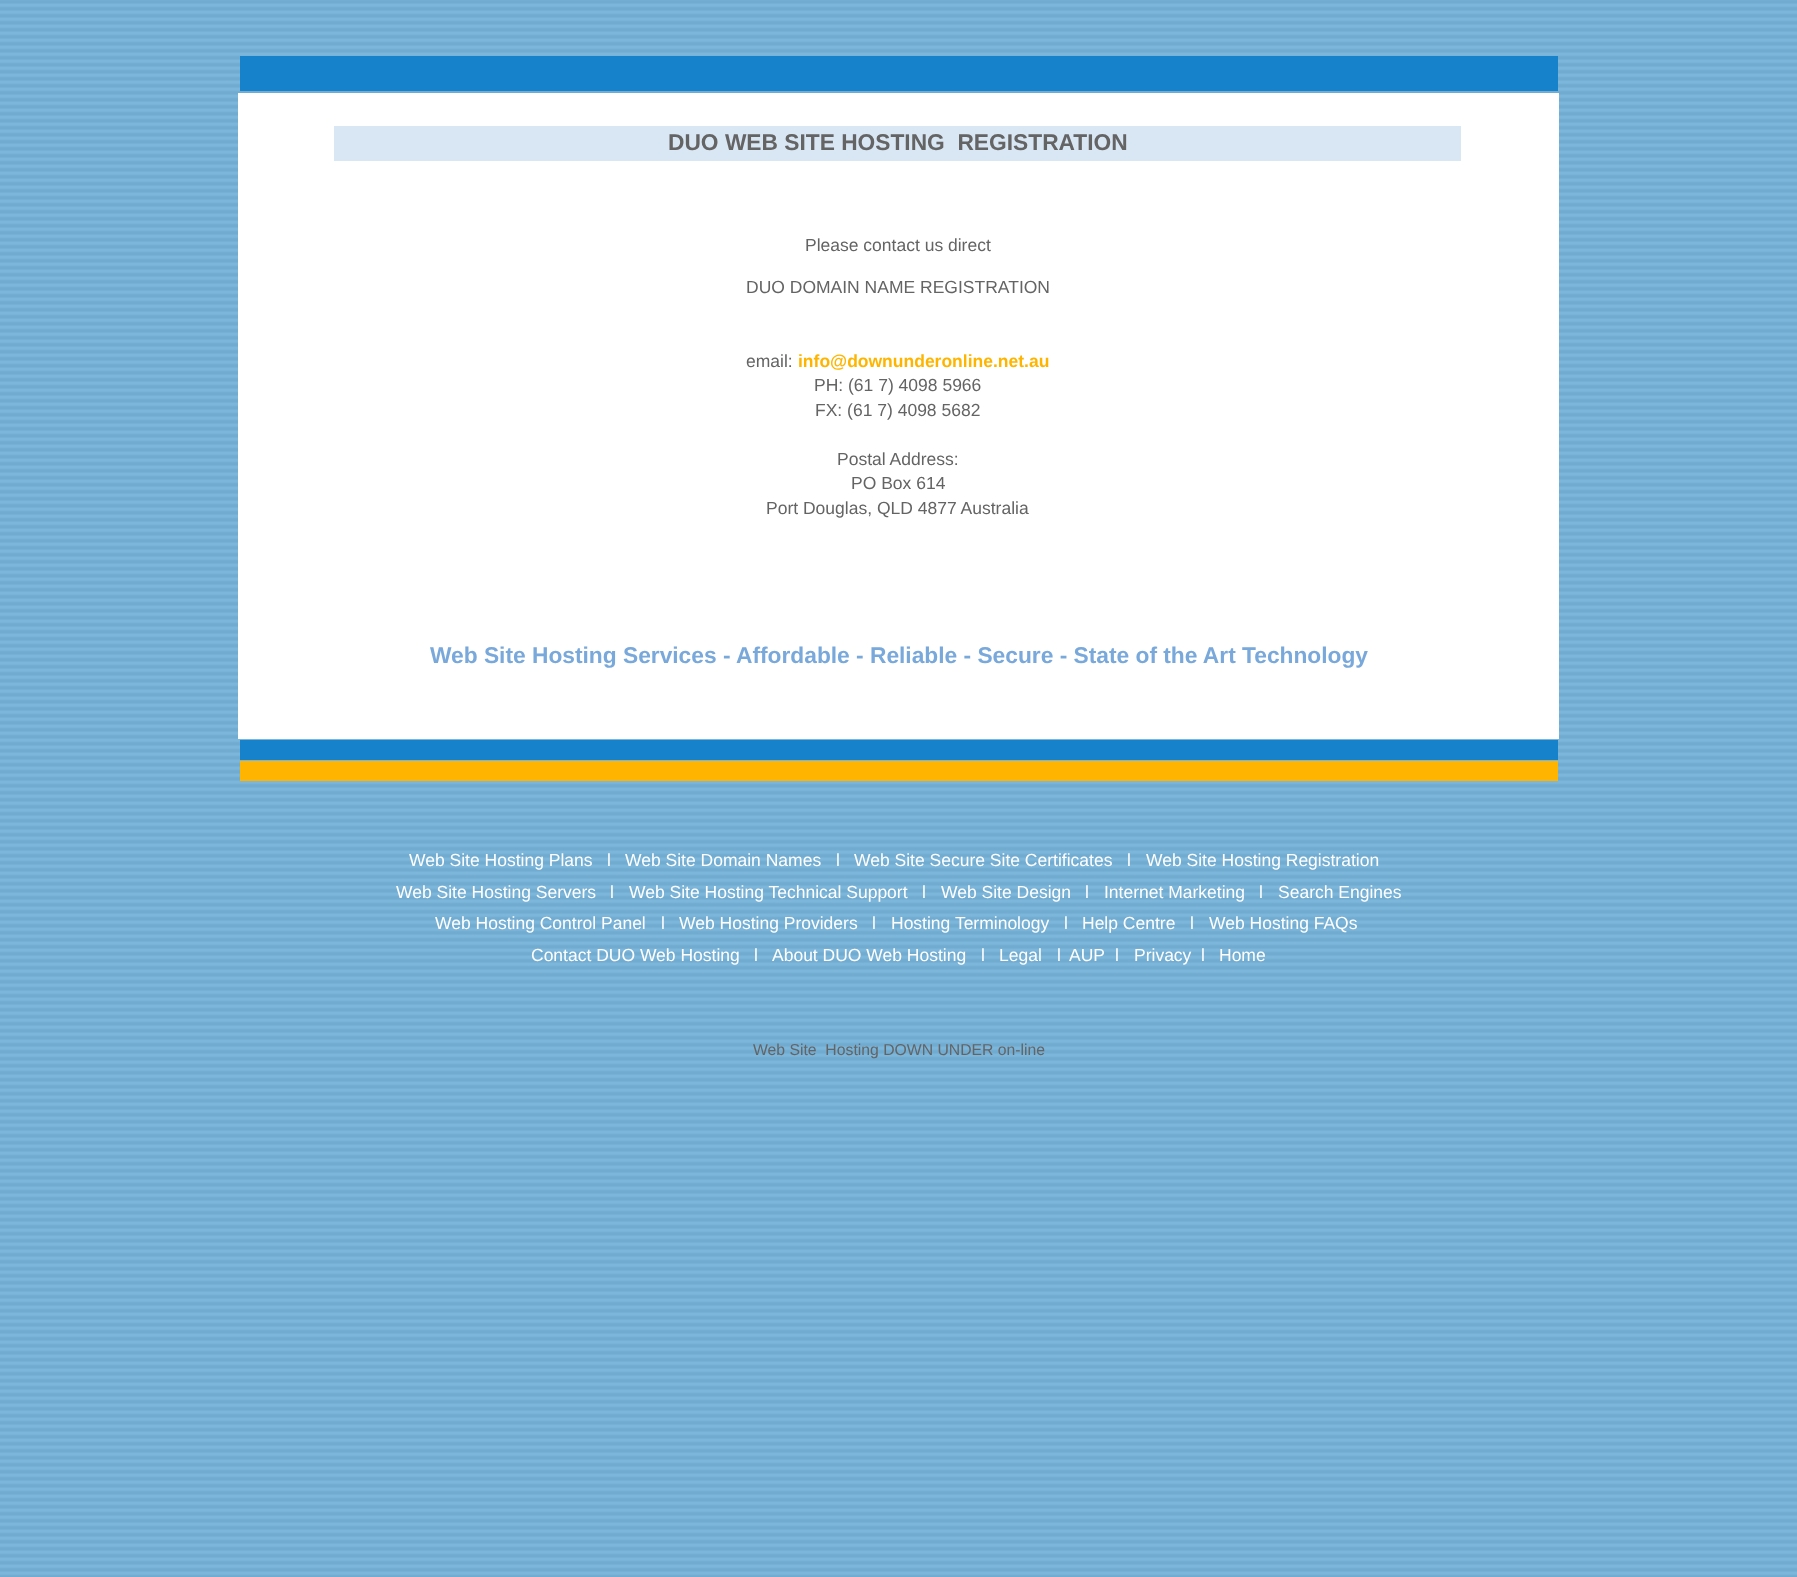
<?xml version="1.0" encoding="UTF-8"?>
<svg xmlns="http://www.w3.org/2000/svg" width="1797" height="1577">
    <rect width="100%" height="100%" fill="#FFFFFF"/>
    <image x="0" y="0" width="1797" height="1577" href="img_01.png"/>
    <rect x="240" y="56" width="1318" height="35" fill="#1682CC"/>
    <rect x="238" y="93" width="1321" height="646" fill="#FFFFFF"/>
    <rect x="334" y="126" width="1127" height="35" fill="#D9E6F4"/>
    <text x="668" y="150" font-family="Liberation Sans" font-size="22.75" font-weight="700" fill="#646464" xml:space="preserve">DUO WEB SITE HOSTING  REGISTRATION</text>
    <text x="805" y="251" font-family="Liberation Sans" font-size="17.5" fill="#646464">Please contact us direct</text>
    <text x="746" y="293" font-family="Liberation Sans" font-size="17.5" fill="#646464">DUO DOMAIN NAME REGISTRATION</text>
    <text x="746" y="367" font-family="Liberation Sans" font-size="17.5" fill="#646464">email:</text>
    <text x="798" y="367" font-family="Liberation Sans" font-size="17.5" font-weight="700" fill="#FFB500">info@downunderonline.net.au</text>
    <text x="814" y="391" font-family="Liberation Sans" font-size="17.5" fill="#646464">PH: (61 7) 4098 5966</text>
    <text x="815" y="416" font-family="Liberation Sans" font-size="17.5" fill="#646464">FX: (61 7) 4098 5682</text>
    <text x="837" y="465" font-family="Liberation Sans" font-size="17.5" fill="#646464">Postal Address:</text>
    <text x="851" y="489" font-family="Liberation Sans" font-size="17.5" fill="#646464">PO Box 614</text>
    <text x="766" y="514" font-family="Liberation Sans" font-size="17.5" fill="#646464">Port Douglas, QLD 4877 Australia</text>
    <text x="430" y="663" font-family="Liberation Sans" font-size="22.75" font-weight="700" fill="#79A8DB">Web Site Hosting Services -</text>
    <text x="736" y="663" font-family="Liberation Sans" font-size="22.75" font-weight="700" fill="#79A8DB">Affordable - Reliable - Secure - State of the Art Technology</text>
    <rect x="240" y="740" width="1318" height="20" fill="#1682CC"/>
    <rect x="240" y="761" width="1318" height="20" fill="#FFB500"/>
    <text x="409" y="866" font-family="Liberation Sans" font-size="17.5" fill="#FFFFFF">Web Site Hosting Plans</text>
    <text x="607" y="866" font-family="Liberation Sans" font-size="17.5" fill="#FFFFFF">l</text>
    <text x="625" y="866" font-family="Liberation Sans" font-size="17.5" fill="#FFFFFF">Web Site Domain Names</text>
    <text x="836" y="866" font-family="Liberation Sans" font-size="17.5" fill="#FFFFFF">l</text>
    <text x="854" y="866" font-family="Liberation Sans" font-size="17.5" fill="#FFFFFF">Web Site Secure Site Certificates</text>
    <text x="1127" y="866" font-family="Liberation Sans" font-size="17.5" fill="#FFFFFF">l</text>
    <text x="1146" y="866" font-family="Liberation Sans" font-size="17.5" fill="#FFFFFF">Web Site Hosting Registration</text>
    <text x="396" y="898" font-family="Liberation Sans" font-size="17.5" fill="#FFFFFF">Web Site Hosting Servers</text>
    <text x="610" y="898" font-family="Liberation Sans" font-size="17.5" fill="#FFFFFF">l</text>
    <text x="629" y="898" font-family="Liberation Sans" font-size="17.5" fill="#FFFFFF">Web Site Hosting Technical Support</text>
    <text x="922" y="898" font-family="Liberation Sans" font-size="17.5" fill="#FFFFFF">l</text>
    <text x="941" y="898" font-family="Liberation Sans" font-size="17.5" fill="#FFFFFF">Web Site Design</text>
    <text x="1085" y="898" font-family="Liberation Sans" font-size="17.5" fill="#FFFFFF">l</text>
    <text x="1104" y="898" font-family="Liberation Sans" font-size="17.5" fill="#FFFFFF">Internet Marketing</text>
    <text x="1259" y="898" font-family="Liberation Sans" font-size="17.5" fill="#FFFFFF">l</text>
    <text x="1278" y="898" font-family="Liberation Sans" font-size="17.5" fill="#FFFFFF">Search Engines</text>
    <text x="435" y="929" font-family="Liberation Sans" font-size="17.5" fill="#FFFFFF">Web Hosting Control Panel</text>
    <text x="661" y="929" font-family="Liberation Sans" font-size="17.5" fill="#FFFFFF">l</text>
    <text x="679" y="929" font-family="Liberation Sans" font-size="17.5" fill="#FFFFFF">Web Hosting Providers</text>
    <text x="872" y="929" font-family="Liberation Sans" font-size="17.5" fill="#FFFFFF">l</text>
    <text x="891" y="929" font-family="Liberation Sans" font-size="17.5" fill="#FFFFFF">Hosting Terminology</text>
    <text x="1064" y="929" font-family="Liberation Sans" font-size="17.5" fill="#FFFFFF">l</text>
    <text x="1082" y="929" font-family="Liberation Sans" font-size="17.5" fill="#FFFFFF">Help Centre</text>
    <text x="1190" y="929" font-family="Liberation Sans" font-size="17.5" fill="#FFFFFF">l</text>
    <text x="1209" y="929" font-family="Liberation Sans" font-size="17.5" fill="#FFFFFF">Web Hosting FAQs</text>
    <text x="531" y="961" font-family="Liberation Sans" font-size="17.5" fill="#FFFFFF">Contact DUO Web Hosting</text>
    <text x="754" y="961" font-family="Liberation Sans" font-size="17.5" fill="#FFFFFF">l</text>
    <text x="772" y="961" font-family="Liberation Sans" font-size="17.5" fill="#FFFFFF">About DUO Web Hosting</text>
    <text x="981" y="961" font-family="Liberation Sans" font-size="17.5" fill="#FFFFFF">l</text>
    <text x="999" y="961" font-family="Liberation Sans" font-size="17.5" fill="#FFFFFF">Legal</text>
    <text x="1057" y="961" font-family="Liberation Sans" font-size="17.5" fill="#FFFFFF">l</text>
    <text x="1069" y="961" font-family="Liberation Sans" font-size="17.5" fill="#FFFFFF">AUP</text>
    <text x="1115" y="961" font-family="Liberation Sans" font-size="17.5" fill="#FFFFFF">l</text>
    <text x="1134" y="961" font-family="Liberation Sans" font-size="17.5" fill="#FFFFFF">Privacy</text>
    <text x="1201" y="961" font-family="Liberation Sans" font-size="17.5" fill="#FFFFFF">l</text>
    <text x="1219" y="961" font-family="Liberation Sans" font-size="17.5" fill="#FFFFFF">Home</text>
    <text x="753" y="1055" font-family="Liberation Sans" font-size="15.75" fill="#646464" xml:space="preserve">Web Site  Hosting DOWN UNDER on-line</text>
</svg>
